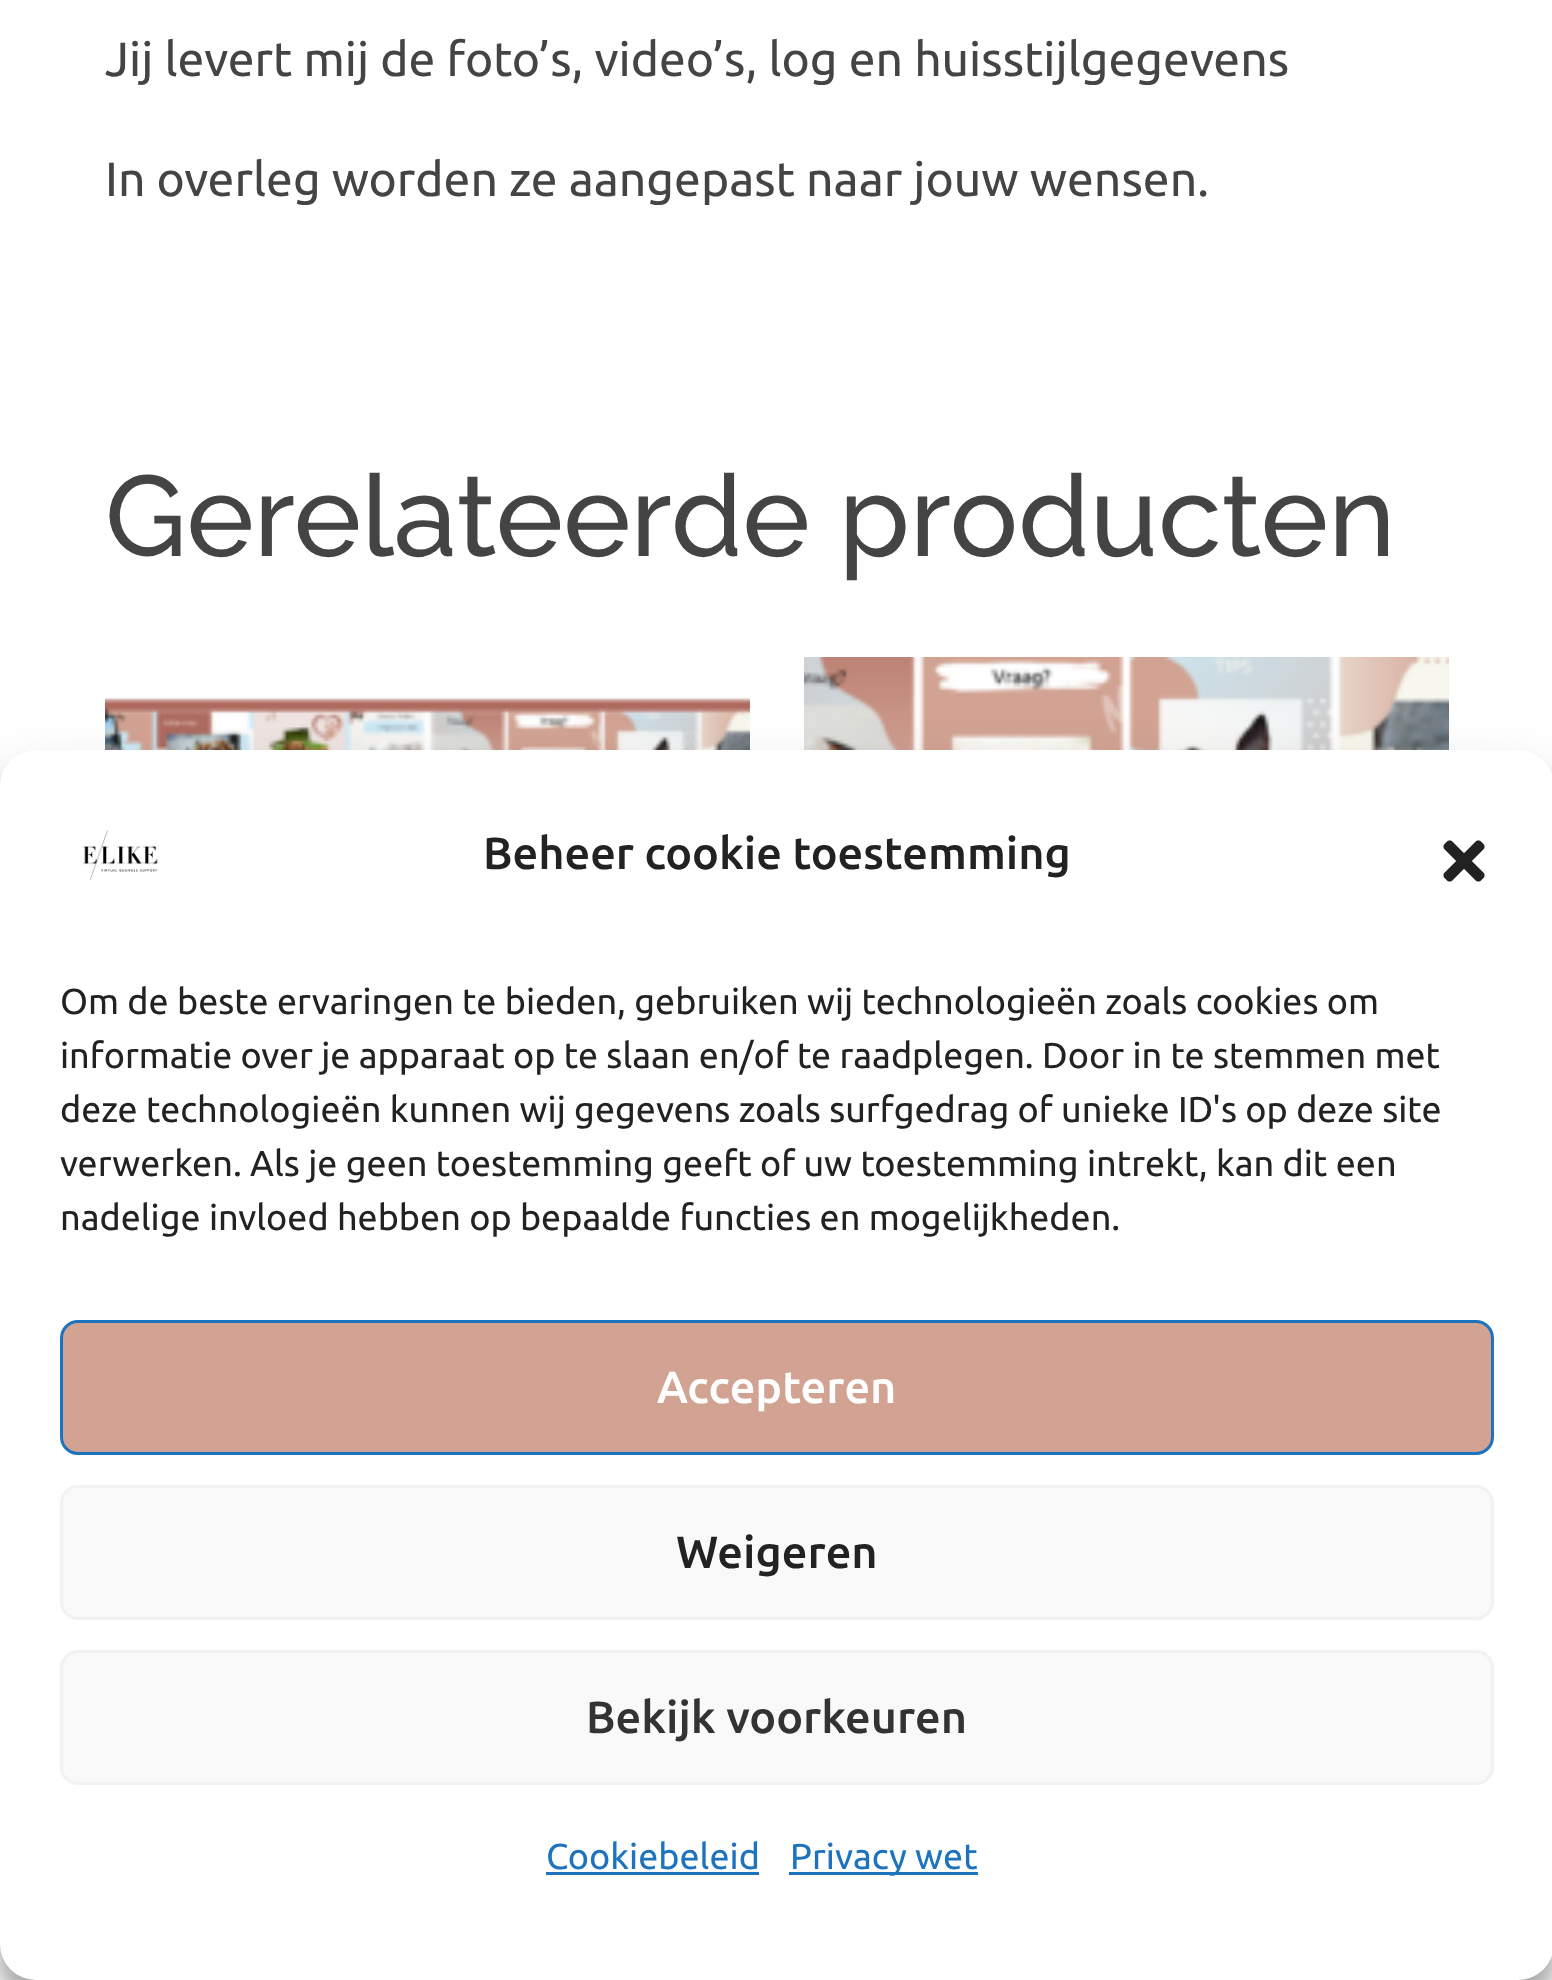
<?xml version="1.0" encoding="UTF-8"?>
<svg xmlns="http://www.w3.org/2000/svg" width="1552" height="1980">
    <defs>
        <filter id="blur1" x="-50%" y="-200%" width="200%" height="500%"><feGaussianBlur stdDeviation="9"/></filter>
        <filter id="blur2" x="-50%" y="-200%" width="200%" height="500%"><feGaussianBlur stdDeviation="30"/></filter>
    </defs>
    <rect width="100%" height="100%" fill="#FFFFFF"/>
    <text x="105" y="76" font-family="Ubuntu" font-size="48" fill="#444444">Jij levert mij de foto’s, video’s, log en huisstijlgegevens</text>
    <text x="105" y="196" font-family="Ubuntu" font-size="48" fill="#444444">In overleg worden ze aangepast naar jouw wensen.</text>
    <text x="105" y="556" font-family="Raleway" font-size="114" font-weight="500" fill="#444444">Gerelateerde producten</text>
    <image x="105" y="698" width="645" height="52" href="img_01.png"/>
    <image x="804" y="657" width="645" height="93" href="img_02.png"/>
    <rect x="0" y="768" width="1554" height="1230" rx="36" fill="#000000" fill-opacity="0.23" filter="url(#blur1)"/>
    <rect x="0" y="780" width="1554" height="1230" rx="36" fill="#000000" fill-opacity="0.19" filter="url(#blur2)"/>
    <rect x="0" y="750" width="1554" height="1230" rx="36" fill="#FFFFFF"/>
    <image x="82" y="830" width="76" height="51" href="img_03.png"/>
    <text x="483" y="869" font-family="Ubuntu" font-size="45" font-weight="500" fill="#222222">Beheer cookie toestemming</text>
    <image x="1443" y="840" width="42" height="42" href="img_04.png"/>
    <text font-family="Ubuntu" font-size="36" fill="#222222">
        <tspan x="60" y="1014">Om de beste ervaringen te bieden, gebruiken wij technologieën zoals cookies om</tspan>
        <tspan x="60" y="1068">informatie over je apparaat op te slaan en/of te raadplegen. Door in te stemmen met</tspan>
        <tspan x="60" y="1122">deze technologieën kunnen wij gegevens zoals surfgedrag of unieke ID's op deze site</tspan>
        <tspan x="60" y="1176">verwerken. Als je geen toestemming geeft of uw toestemming intrekt, kan dit een</tspan>
        <tspan x="60" y="1230">nadelige invloed hebben op bepaalde functies en mogelijkheden.</tspan>
    </text>
    <rect x="61.5" y="1321.5" width="1431" height="132" rx="16.5" fill="#D2A393" stroke="#1E73BE" stroke-width="3"/>
    <text x="657" y="1403" font-family="Ubuntu" font-size="45" font-weight="500" fill="#FFFFFF">Accepteren</text>
    <rect x="61.5" y="1486.5" width="1431" height="132" rx="16.5" fill="#F9F9F9" stroke="#F2F2F2" stroke-width="3"/>
    <text x="676" y="1568" font-family="Ubuntu" font-size="45" font-weight="500" fill="#222222">Weigeren</text>
    <rect x="61.5" y="1651.5" width="1431" height="132" rx="16.5" fill="#F9F9F9" stroke="#F2F2F2" stroke-width="3"/>
    <text x="586" y="1733" font-family="Ubuntu" font-size="45" font-weight="500" fill="#333333">Bekijk voorkeuren</text>
    <text x="546" y="1869" font-family="Ubuntu" font-size="36" fill="#1E73BE">Cookiebeleid</text>
    <rect x="546" y="1872" width="213" height="3" fill="#1E73BE"/>
    <rect x="789" y="1872" width="189" height="3" fill="#1E73BE"/>
    <text x="790" y="1869" font-family="Ubuntu" font-size="36" fill="#1E73BE">Privacy wet</text>
</svg>
